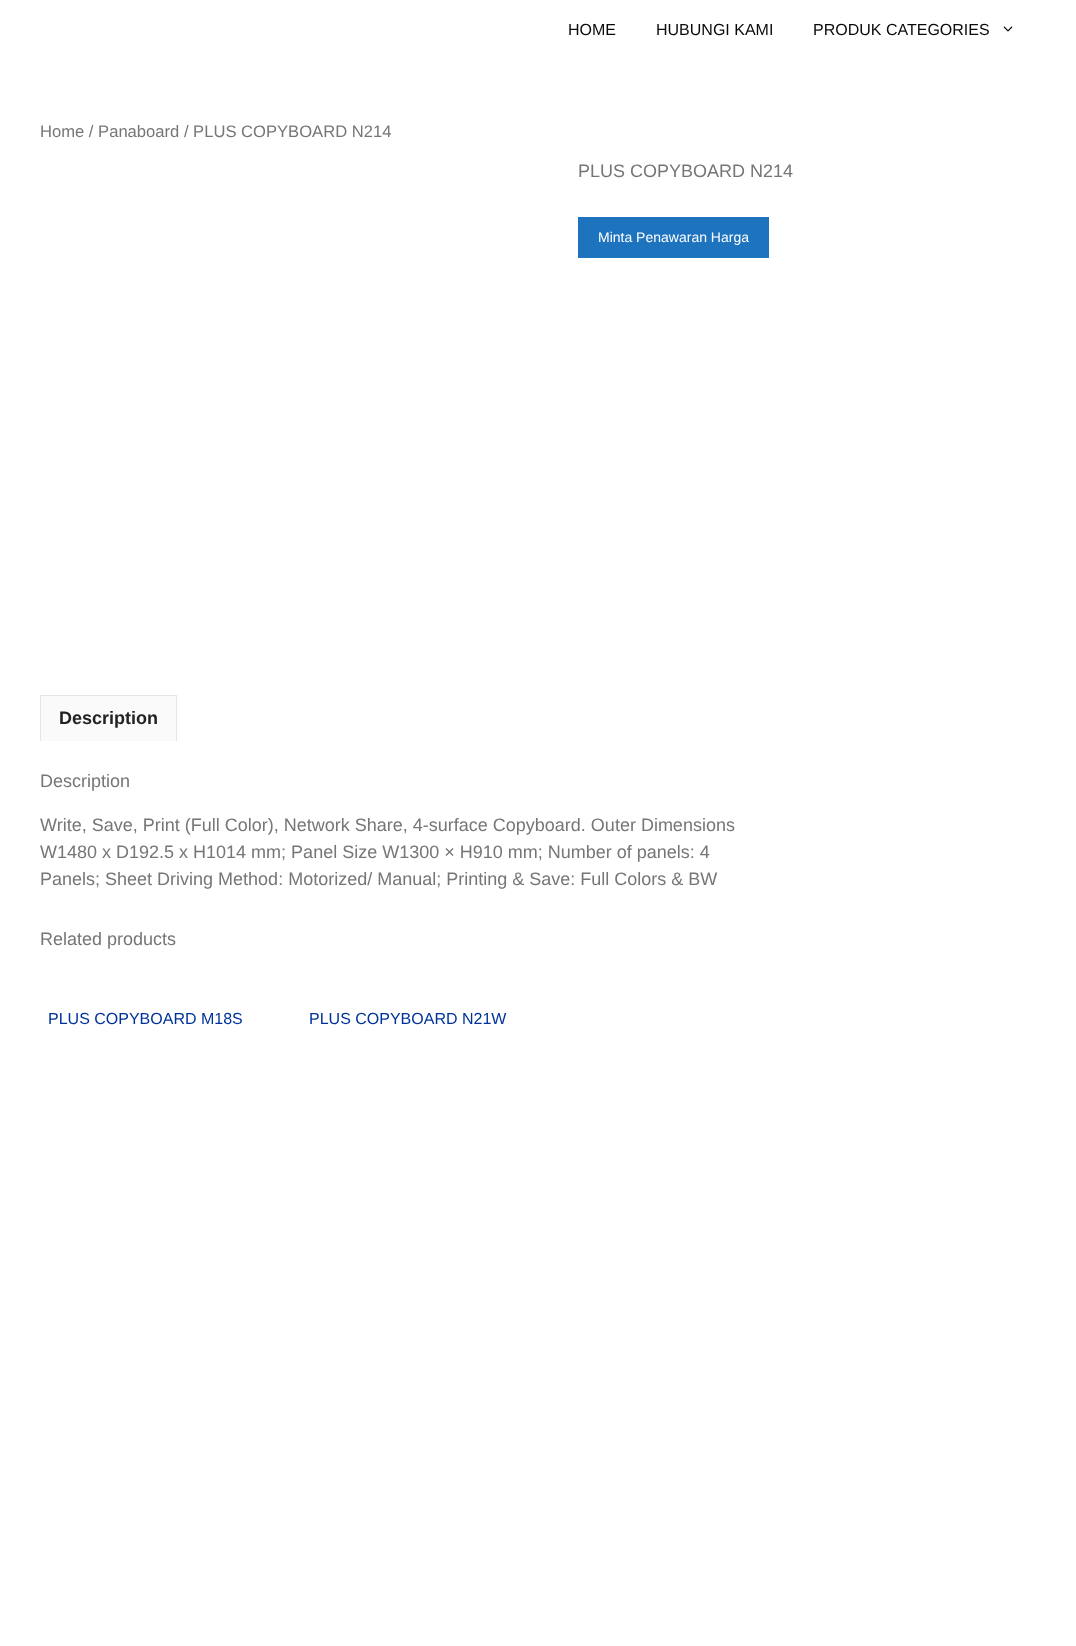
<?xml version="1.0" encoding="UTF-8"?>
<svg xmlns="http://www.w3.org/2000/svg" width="1076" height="1646">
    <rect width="100%" height="100%" fill="#FFFFFF"/>
    <text x="568" y="35" font-family="Liberation Sans" font-size="16" fill="#0A0A0A">HOME</text>
    <text x="656" y="35" font-family="Liberation Sans" font-size="16" fill="#0A0A0A">HUBUNGI KAMI</text>
    <text x="813" y="35" font-family="Liberation Sans" font-size="16" fill="#0A0A0A">PRODUK CATEGORIES</text>
    <image x="1003" y="26" width="10" height="6" href="img_01.png"/>
    <text x="40" y="137" font-family="Liberation Sans" font-size="16.6" fill="#767676">Home / Panaboard / PLUS COPYBOARD N214</text>
    <text x="578" y="177" font-family="Liberation Sans" font-size="18" fill="#767676">PLUS COPYBOARD N214</text>
    <rect x="578" y="217" width="191" height="41" fill="#1E73BE"/>
    <text x="598" y="242" font-family="Liberation Sans" font-size="14" fill="#FFFFFF">Minta Penawaran Harga</text>
    <rect x="40" y="695" width="137" height="46" fill="#FAFAFA"/>
    <path d="M 40 695 H 177 L 176 696 H 41 Z" fill="#E6E6E6"/>
    <path d="M 177 695 V 741 H 176 V 696 Z" fill="#000000" fill-opacity="0.08"/>
    <path d="M 40 741 V 695 L 41 696 V 741 Z" fill="#000000" fill-opacity="0.08"/>
    <text x="59" y="724" font-family="Liberation Sans" font-size="18" font-weight="700" fill="#222222">Description</text>
    <text x="40" y="787" font-family="Liberation Sans" font-size="18" fill="#767676">Description</text>
    <text font-family="Liberation Sans" font-size="18" fill="#767676">
        <tspan x="40" y="831">Write, Save, Print (Full Color), Network Share, 4-surface Copyboard. Outer Dimensions</tspan>
        <tspan x="40" y="858">W1480 x D192.5 x H1014 mm; Panel Size W1300 × H910 mm; Number of panels: 4</tspan>
        <tspan x="40" y="885">Panels; Sheet Driving Method: Motorized/ Manual; Printing &amp; Save: Full Colors &amp; BW</tspan>
    </text>
    <text x="40" y="945" font-family="Liberation Sans" font-size="18" fill="#767676">Related products</text>
    <text x="48" y="1024" font-family="Liberation Sans" font-size="16" fill="#003399">PLUS COPYBOARD M18S</text>
    <text x="309" y="1024" font-family="Liberation Sans" font-size="16" fill="#003399">PLUS COPYBOARD N21W</text>
</svg>
